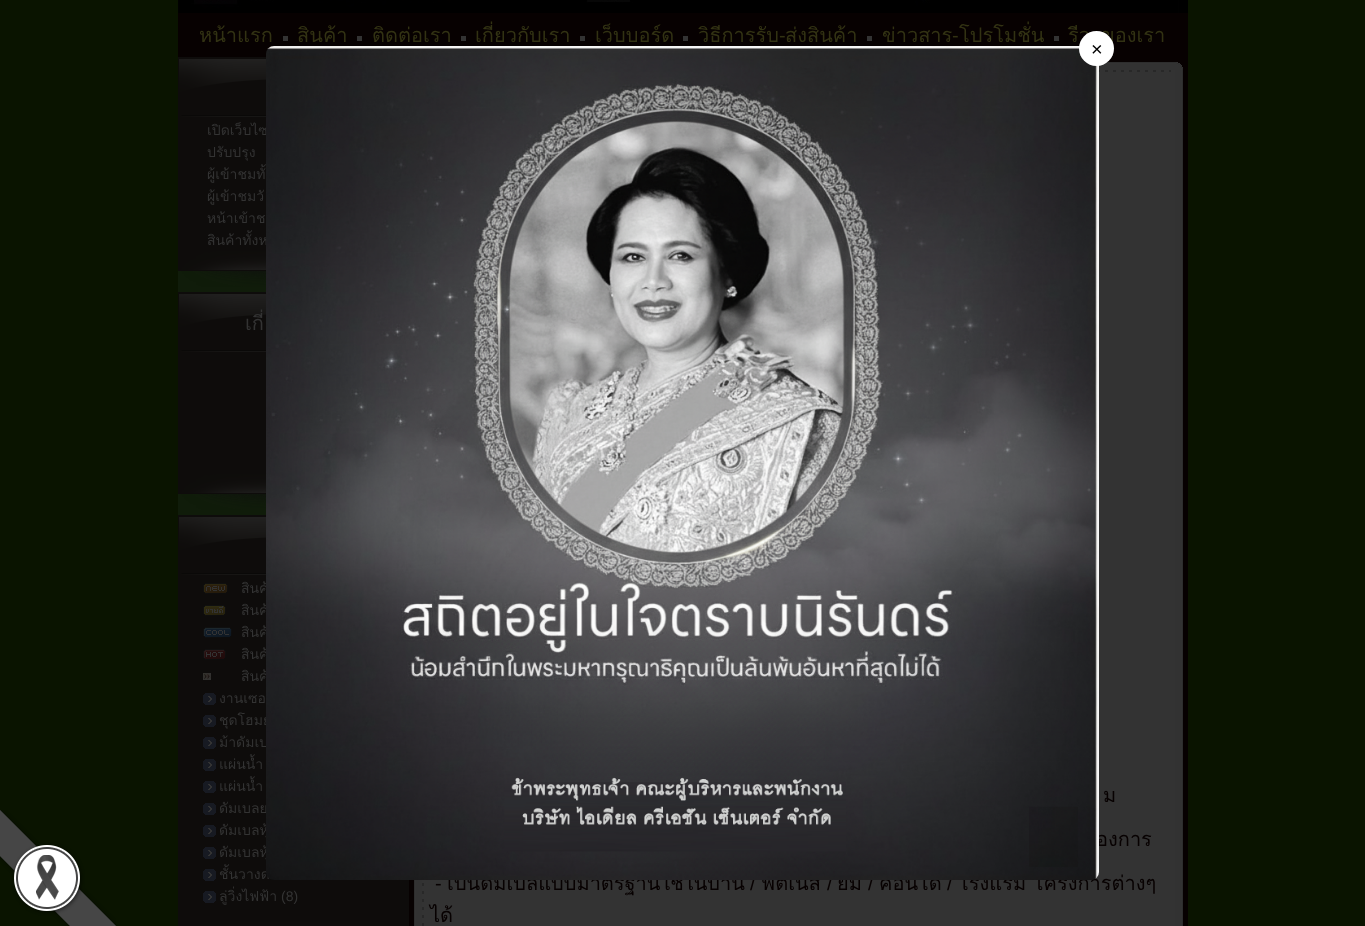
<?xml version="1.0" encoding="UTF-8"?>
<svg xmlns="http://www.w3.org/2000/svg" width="1365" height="926">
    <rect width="100%" height="100%" fill="#0A1400"/>
    <rect x="178" y="13" width="1010" height="913" fill="#070101"/>
    <image x="178" y="0" width="1010" height="13" href="img_01.png"/>
    <text x="199" y="42" font-family="Loma" font-size="20" fill="#323213">หน้าแรก</text>
    <text x="297" y="42" font-family="Loma" font-size="20" fill="#323213">สินค้า</text>
    <text x="372" y="42" font-family="Loma" font-size="20" fill="#323213">ติดต่อเรา</text>
    <text x="475" y="42" font-family="Loma" font-size="20" fill="#323213">เกี่ยวกับเรา</text>
    <text x="595" y="42" font-family="Loma" font-size="20" fill="#323213">เว็บบอร์ด</text>
    <text x="698" y="42" font-family="Loma" font-size="20" fill="#323213">วิธีการรับ</text>
    <text x="779" y="42" font-family="Liberation Sans" font-size="20" fill="#323213">-</text>
    <text x="785" y="42" font-family="Loma" font-size="20" fill="#323213">ส่งสินค้า</text>
    <text x="882" y="42" font-family="Loma" font-size="20" fill="#323213">ข่าวสาร โปรโมชั่น</text>
    <text x="1068" y="42" font-family="Loma" font-size="20" fill="#323213">รีว</text>
    <text x="1101" y="42" font-family="Loma" font-size="20" fill="#323213">ของเรา</text>
    <rect x="283" y="36" width="5" height="5" fill="#333333"/>
    <rect x="357" y="36" width="5" height="5" fill="#333333"/>
    <rect x="461" y="36" width="5" height="5" fill="#333333"/>
    <rect x="580" y="36" width="5" height="5" fill="#333333"/>
    <rect x="683" y="36" width="5" height="5" fill="#333333"/>
    <rect x="867" y="36" width="5" height="5" fill="#333333"/>
    <text x="952" y="42" font-family="Liberation Sans" font-size="20" fill="#323213">-</text>
    <rect x="1054" y="36" width="5" height="5" fill="#333333"/>
    <rect x="178" y="271" width="88" height="244" fill="#101C0A"/>
    <image x="178" y="57" width="88" height="62" href="img_02.png"/>
    <rect x="178" y="119" width="88" height="132" fill="#0E0C0B"/>
    <text font-family="Loma" font-size="14" fill="#333333">
        <tspan x="207" y="135">เปิดเว็บไซ</tspan>
        <tspan x="207" y="157">ปรับปรุง</tspan>
        <tspan x="207" y="179">ผู้เข้าชมทั้</tspan>
        <tspan x="207" y="201">ผู้เข้าชมวั</tspan>
        <tspan x="207" y="223">หน้าเข้าช</tspan>
        <tspan x="207" y="245">สินค้าทั้งห</tspan>
    </text>
    <image x="178" y="251" width="88" height="36" href="img_03.png"/>
    <image x="178" y="292" width="88" height="62" href="img_02.png"/>
    <text x="245" y="330" font-family="Loma" font-size="20" fill="#333333">เกี่</text>
    <rect x="178" y="354" width="88" height="120" fill="#0E0C0B"/>
    <image x="178" y="474" width="88" height="36" href="img_03.png"/>
    <image x="178" y="515" width="88" height="62" href="img_02.png"/>
    <rect x="178" y="577" width="88" height="110" fill="#0E0C0B"/>
    <image x="203" y="583" width="25" height="11" href="img_04.png"/>
    <text x="241" y="593" font-family="Loma" font-size="14" fill="#333333">สินค้</text>
    <image x="203" y="605" width="23" height="11" href="img_05.png"/>
    <text x="241" y="615" font-family="Loma" font-size="14" fill="#333333">สินค้</text>
    <image x="203" y="627" width="29" height="11" href="img_06.png"/>
    <text x="241" y="637" font-family="Loma" font-size="14" fill="#333333">สินค้</text>
    <image x="203" y="649" width="23" height="11" href="img_07.png"/>
    <text x="241" y="659" font-family="Loma" font-size="14" fill="#333333">สินค้</text>
    <image x="203" y="673" width="8" height="7" href="img_08.png"/>
    <text x="241" y="681" font-family="Loma" font-size="14" fill="#333333">สินค้</text>
    <rect x="178" y="687" width="231" height="234" fill="#0E0C0B"/>
    <image x="203" y="693" width="13" height="12" href="img_09.png"/>
    <text x="219" y="703" font-family="Loma" font-size="14" fill="#333333">งานเซอ</text>
    <image x="203" y="715" width="13" height="12" href="img_09.png"/>
    <text x="219" y="725" font-family="Loma" font-size="14" fill="#333333">ชุดโฮมย</text>
    <image x="203" y="737" width="13" height="12" href="img_09.png"/>
    <text x="219" y="747" font-family="Loma" font-size="14" fill="#333333">ม้าดัมเบ</text>
    <image x="203" y="759" width="13" height="12" href="img_09.png"/>
    <text x="219" y="769" font-family="Loma" font-size="14" fill="#333333">แผ่นน้ำ</text>
    <image x="203" y="781" width="13" height="12" href="img_09.png"/>
    <text x="219" y="791" font-family="Loma" font-size="14" fill="#333333">แผ่นน้ำ</text>
    <image x="203" y="803" width="13" height="12" href="img_09.png"/>
    <text x="219" y="813" font-family="Loma" font-size="14" fill="#333333">ดัมเบลย</text>
    <image x="203" y="825" width="13" height="12" href="img_09.png"/>
    <text x="219" y="835" font-family="Loma" font-size="14" fill="#333333">ดัมเบลหุ้</text>
    <image x="203" y="847" width="13" height="12" href="img_09.png"/>
    <text x="219" y="857" font-family="Loma" font-size="14" fill="#333333">ดัมเบลหุ้</text>
    <image x="203" y="869" width="13" height="12" href="img_09.png"/>
    <text x="219" y="879" font-family="Loma" font-size="14" fill="#333333">ชั้นวางด</text>
    <image x="203" y="891" width="13" height="12" href="img_09.png"/>
    <text x="219" y="901" font-family="Loma" font-size="14" fill="#333333">ลู่วิ่งไฟฟ้า</text>
    <text x="281" y="901" font-family="Liberation Sans" font-size="14" fill="#333333">(8)</text>
    <image x="178" y="921" width="231" height="5" href="img_10.png"/>
    <image x="1099" y="62" width="76" height="8" href="img_11.png"/>
    <image x="1175" y="62" width="8" height="8" href="img_12.png"/>
    <image x="414" y="880" width="8" height="46" href="img_13.png"/>
    <rect x="422" y="70" width="753" height="856" fill="#333333"/>
    <image x="1099" y="70" width="72" height="2" href="img_14.png"/>
    <image x="422" y="883" width="2" height="43" href="img_15.png"/>
    <text x="1103" y="802" font-family="Loma" font-size="20" fill="#070101">ม</text>
    <text x="1096" y="846" font-family="Loma" font-size="20" fill="#070101">องการ</text>
    <text x="447" y="890" font-family="Loma" font-size="20" fill="#070101">เป็นดัมเบลแบบมาตรฐานใช้ในบ้าน</text>
    <text x="750" y="890" font-family="Liberation Sans" font-size="20" fill="#070101">/</text>
    <text x="761" y="890" font-family="Loma" font-size="20" fill="#070101">ฟิตเนส</text>
    <text x="827" y="890" font-family="Liberation Sans" font-size="20" fill="#070101">/</text>
    <text x="837" y="890" font-family="Loma" font-size="20" fill="#070101">ยิม</text>
    <text x="879" y="890" font-family="Loma" font-size="20" fill="#070101">คอนโด</text>
    <text x="958" y="890" font-family="Loma" font-size="20" fill="#070101">โรงแรม โครงการต่างๆ</text>
    <text x="435" y="890" font-family="Liberation Sans" font-size="20" fill="#070101">-</text>
    <text x="868" y="890" font-family="Liberation Sans" font-size="20" fill="#070101">/</text>
    <text x="947" y="890" font-family="Liberation Sans" font-size="20" fill="#070101">/</text>
    <text x="430" y="922" font-family="Loma" font-size="20" fill="#070101">ได้</text>
    <image x="1175" y="70" width="8" height="856" href="img_16.png"/>
    <image x="266" y="46" width="833" height="834" href="img_17.png"/>
    <circle cx="1096.5" cy="48.5" r="17.5" fill="#FFFFFF"/>
    <text x="1091" y="56" font-family="Liberation Sans" font-size="20" fill="#000000">×</text>
    <image x="0" y="810" width="116" height="116" href="img_18.png"/>
</svg>
